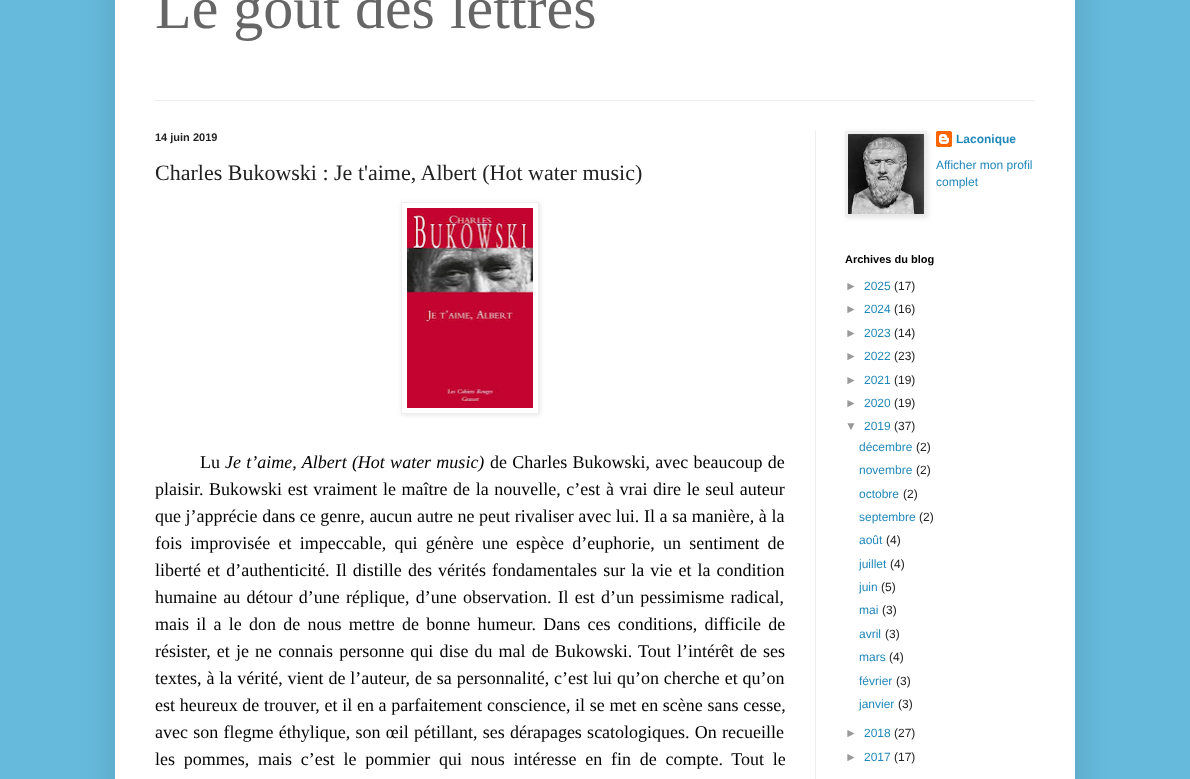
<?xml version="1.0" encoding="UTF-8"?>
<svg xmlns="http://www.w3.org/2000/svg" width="1190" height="779">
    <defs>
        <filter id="blur1" x="-50%" y="-200%" width="200%" height="500%"><feGaussianBlur stdDeviation="20"/></filter>
        <clipPath id="clip1"><path d="M 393 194 H 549 V 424 H 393 Z M 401 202 H 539 V 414 H 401 Z" clip-rule="evenodd"/></clipPath>
        <filter id="blur2" x="-50%" y="-200%" width="200%" height="500%"><feGaussianBlur stdDeviation="2.5"/></filter>
    </defs>
    <rect width="100%" height="100%" fill="#66BBDD"/>
    <rect x="115" y="-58" width="960" height="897" fill="#000000" fill-opacity="0.15" filter="url(#blur1)"/>
    <rect x="115" y="0" width="960" height="779" fill="#FFFFFF"/>
    <text x="155" y="28" font-family="Liberation Serif" font-size="60" fill="#666666">Le goût des lettres</text>
    <rect x="155" y="100" width="880" height="1" fill="#EEEEEE"/>
    <rect x="815" y="131" width="1" height="648" fill="#EEEEEE"/>
    <text x="155" y="141" font-family="Liberation Sans" font-size="11" font-weight="700" fill="#222222">14 juin 2019</text>
    <text x="155" y="180" font-family="Liberation Serif" font-size="22" fill="#222222">Charles Bukowski : Je t'aime, Albert (Hot water music)</text>
    <g clip-path="url(#clip1)">
        <rect x="402" y="203" width="138" height="212" fill="#000000" fill-opacity="0.1" filter="url(#blur2)"/>
    </g>
    <rect x="401.5" y="202.5" width="137" height="211" fill="none" stroke="#EEEEEE"/>
    <image x="407" y="208" width="126" height="200" href="img_01.png"/>
    <text x="200" y="468" font-family="Liberation Serif" font-size="18" fill="#000000">Lu</text>
    <text x="225" y="468" word-spacing="0.75" font-family="Liberation Serif" font-size="18" font-style="italic" fill="#000000">Je t’aime, Albert (Hot water music)</text>
    <text x="490" y="468" word-spacing="0.75" font-family="Liberation Serif" font-size="18" fill="#000000">de Charles Bukowski, avec beaucoup de</text>
    <text font-family="Liberation Serif" font-size="18" fill="#000000">
        <tspan x="155" y="495" word-spacing="1.1">plaisir. Bukowski est vraiment le maître de la nouvelle, c’est à vrai dire le seul auteur</tspan>
        <tspan x="155" y="522" word-spacing="0.1">que j’apprécie dans ce genre, aucun autre ne peut rivaliser avec lui. Il a sa manière, à la</tspan>
        <tspan x="155" y="549" word-spacing="3.75">fois improvisée et impeccable, qui génère une espèce d’euphorie, un sentiment de</tspan>
        <tspan x="155" y="576" word-spacing="1.6">liberté et d’authenticité. Il distille des vérités fondamentales sur la vie et la condition</tspan>
        <tspan x="155" y="603" word-spacing="1.75">humaine au détour d’une réplique, d’une observation. Il est d’un pessimisme radical,</tspan>
        <tspan x="155" y="630" word-spacing="2.75">mais il a le don de nous mettre de bonne humeur. Dans ces conditions, difficile de</tspan>
        <tspan x="155" y="657" word-spacing="1.6">résister, et je ne connais personne qui dise du mal de Bukowski. Tout l’intérêt de ses</tspan>
        <tspan x="155" y="684" word-spacing="0.4">textes, à la vérité, vient de l’auteur, de sa personnalité, c’est lui qu’on cherche et qu’on</tspan>
        <tspan x="155" y="711" word-spacing="0.2">est heureux de trouver, et il en a parfaitement conscience, il se met en scène sans cesse,</tspan>
        <tspan x="155" y="738" word-spacing="0.75">avec son flegme éthylique, son œil pétillant, ses dérapages scatologiques. On recueille</tspan>
        <tspan x="155" y="765" word-spacing="4.25">les pommes, mais c’est le pommier qui nous intéresse en fin de compte. Tout le</tspan>
    </text>
    <image x="936" y="131" width="16" height="16" href="img_03.png"/>
    <rect x="846" y="132" width="82" height="86" fill="#000000" fill-opacity="0.1" filter="url(#blur2)"/>
    <rect x="845.5" y="131.5" width="81" height="85" fill="none" stroke="#EEEEEE"/>
    <image x="848" y="134" width="76" height="80" href="img_02.png"/>
    <text x="956" y="143" font-family="Liberation Sans" font-size="12" font-weight="700" fill="#2288BB">Laconique</text>
    <text font-family="Liberation Sans" font-size="12" fill="#2288BB">
        <tspan x="936" y="169">Afficher mon profil</tspan>
        <tspan x="936" y="186">complet</tspan>
    </text>
    <text x="845" y="263" font-family="Liberation Sans" font-size="11" font-weight="700" fill="#000000">Archives du blog</text>
    <text x="845" y="290" font-family="Liberation Sans" font-size="12" fill="#999999">►</text>
    <text x="864" y="290" font-family="Liberation Sans" font-size="12" fill="#2288BB">2025</text>
    <text x="894" y="290" font-family="Liberation Sans" font-size="12" fill="#222222">(17)</text>
    <text x="845" y="313" font-family="Liberation Sans" font-size="12" fill="#999999">►</text>
    <text x="864" y="313" font-family="Liberation Sans" font-size="12" fill="#2288BB">2024</text>
    <text x="894" y="313" font-family="Liberation Sans" font-size="12" fill="#222222">(16)</text>
    <text x="845" y="337" font-family="Liberation Sans" font-size="12" fill="#999999">►</text>
    <text x="864" y="337" font-family="Liberation Sans" font-size="12" fill="#2288BB">2023</text>
    <text x="894" y="337" font-family="Liberation Sans" font-size="12" fill="#222222">(14)</text>
    <text x="845" y="360" font-family="Liberation Sans" font-size="12" fill="#999999">►</text>
    <text x="864" y="360" font-family="Liberation Sans" font-size="12" fill="#2288BB">2022</text>
    <text x="894" y="360" font-family="Liberation Sans" font-size="12" fill="#222222">(23)</text>
    <text x="845" y="384" font-family="Liberation Sans" font-size="12" fill="#999999">►</text>
    <text x="864" y="384" font-family="Liberation Sans" font-size="12" fill="#2288BB">2021</text>
    <text x="894" y="384" font-family="Liberation Sans" font-size="12" fill="#222222">(19)</text>
    <text x="845" y="407" font-family="Liberation Sans" font-size="12" fill="#999999">►</text>
    <text x="864" y="407" font-family="Liberation Sans" font-size="12" fill="#2288BB">2020</text>
    <text x="894" y="407" font-family="Liberation Sans" font-size="12" fill="#222222">(19)</text>
    <text x="845" y="430" font-family="Liberation Sans" font-size="12" fill="#999999">▼</text>
    <text x="864" y="430" font-family="Liberation Sans" font-size="12" fill="#2288BB">2019</text>
    <text x="894" y="430" font-family="Liberation Sans" font-size="12" fill="#222222">(37)</text>
    <text x="859" y="451" font-family="Liberation Sans" font-size="12" fill="#2288BB">décembre</text>
    <text x="916" y="451" font-family="Liberation Sans" font-size="12" fill="#222222">(2)</text>
    <text x="859" y="474" font-family="Liberation Sans" font-size="12" fill="#2288BB">novembre</text>
    <text x="916" y="474" font-family="Liberation Sans" font-size="12" fill="#222222">(2)</text>
    <text x="859" y="498" font-family="Liberation Sans" font-size="12" fill="#2288BB">octobre</text>
    <text x="903" y="498" font-family="Liberation Sans" font-size="12" fill="#222222">(2)</text>
    <text x="859" y="521" font-family="Liberation Sans" font-size="12" fill="#2288BB">septembre</text>
    <text x="919" y="521" font-family="Liberation Sans" font-size="12" fill="#222222">(2)</text>
    <text x="859" y="544" font-family="Liberation Sans" font-size="12" fill="#2288BB">août</text>
    <text x="886" y="544" font-family="Liberation Sans" font-size="12" fill="#222222">(4)</text>
    <text x="859" y="568" font-family="Liberation Sans" font-size="12" fill="#2288BB">juillet</text>
    <text x="890" y="568" font-family="Liberation Sans" font-size="12" fill="#222222">(4)</text>
    <text x="859" y="591" font-family="Liberation Sans" font-size="12" fill="#2288BB">juin</text>
    <text x="881" y="591" font-family="Liberation Sans" font-size="12" fill="#222222">(5)</text>
    <text x="859" y="614" font-family="Liberation Sans" font-size="12" fill="#2288BB">mai</text>
    <text x="882" y="614" font-family="Liberation Sans" font-size="12" fill="#222222">(3)</text>
    <text x="859" y="638" font-family="Liberation Sans" font-size="12" fill="#2288BB">avril</text>
    <text x="885" y="638" font-family="Liberation Sans" font-size="12" fill="#222222">(3)</text>
    <text x="859" y="661" font-family="Liberation Sans" font-size="12" fill="#2288BB">mars</text>
    <text x="889" y="661" font-family="Liberation Sans" font-size="12" fill="#222222">(4)</text>
    <text x="859" y="685" font-family="Liberation Sans" font-size="12" fill="#2288BB">février</text>
    <text x="896" y="685" font-family="Liberation Sans" font-size="12" fill="#222222">(3)</text>
    <text x="859" y="708" font-family="Liberation Sans" font-size="12" fill="#2288BB">janvier</text>
    <text x="898" y="708" font-family="Liberation Sans" font-size="12" fill="#222222">(3)</text>
    <text x="845" y="737" font-family="Liberation Sans" font-size="12" fill="#999999">►</text>
    <text x="864" y="737" font-family="Liberation Sans" font-size="12" fill="#2288BB">2018</text>
    <text x="894" y="737" font-family="Liberation Sans" font-size="12" fill="#222222">(27)</text>
    <text x="845" y="761" font-family="Liberation Sans" font-size="12" fill="#999999">►</text>
    <text x="864" y="761" font-family="Liberation Sans" font-size="12" fill="#2288BB">2017</text>
    <text x="894" y="761" font-family="Liberation Sans" font-size="12" fill="#222222">(17)</text>
</svg>
